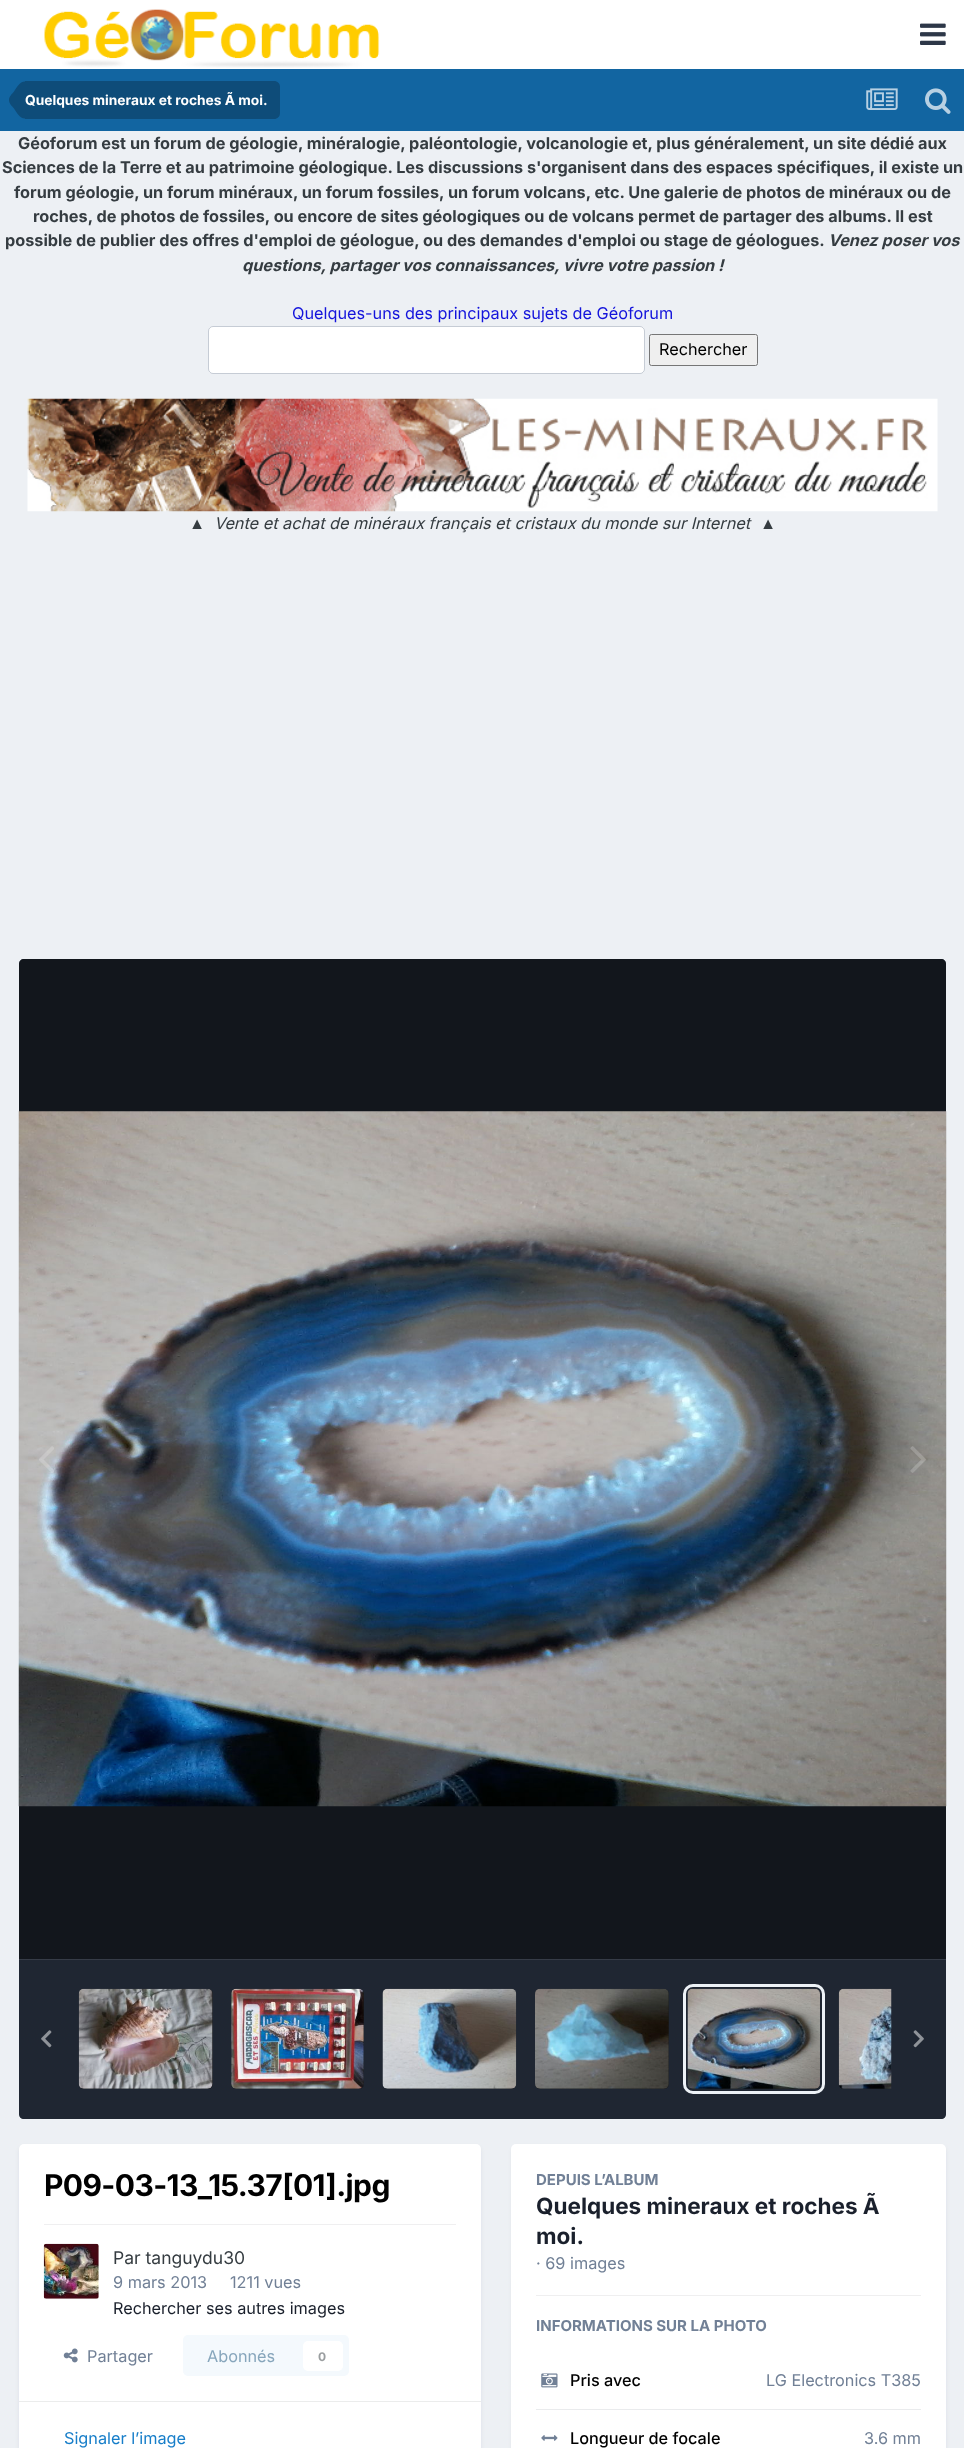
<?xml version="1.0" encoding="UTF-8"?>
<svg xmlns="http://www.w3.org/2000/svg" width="964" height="2448">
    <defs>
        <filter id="blur1" x="-50%" y="-200%" width="200%" height="500%"><feGaussianBlur stdDeviation="2.5"/></filter>
    </defs>
    <rect width="100%" height="100%" fill="#EDF0F4"/>
    <rect x="0" y="0" width="964" height="69" fill="#FFFFFF"/>
    <image x="44" y="9" width="336" height="59" href="img_01.png"/>
    <image x="920" y="23" width="26" height="22" href="img_02.png"/>
    <rect x="0" y="69" width="964" height="62" fill="#1265A1"/>
    <path d="M 25 81 H 274 C 277.5 81 280 83.5 280 87 V 113 C 280 116.5 277.5 119 274 119 H 25 Z" fill="#0E4C79"/>
    <path d="M 25 100 V 118.5 C 19.5 118.5 16.5 112 14 108.5 C 12 106 9 103.5 9 100 Z M 25 100 H 9 C 9 96.5 12 94 14 91.5 C 16.5 88 19.5 81.5 25 81.5 Z" fill="#0E4C79"/>
    <text x="25" y="105" font-family="Inter" font-size="13.75" font-weight="700" fill="#FFFFFF">Quelques mineraux et roches Ã moi.</text>
    <image x="866" y="88" width="32" height="22" href="img_03.png"/>
    <image x="925" y="88" width="26" height="26" href="img_04.png"/>
    <text x="18" y="149" font-family="Inter" font-size="16.25" font-weight="700" fill="#353C41">Géoforum est un forum de géologie, minéralogie, paléontologie, volcanologie et, plus généralement, un site dédié aux</text>
    <text x="2" y="173" font-family="Inter" font-size="16.25" font-weight="700" fill="#353C41">Sciences de la Terre et au patrimoine géologique. Les discussions s'organisent dans des espaces spécifiques, il existe un</text>
    <text x="14" y="198" font-family="Inter" font-size="16.25" font-weight="700" fill="#353C41">forum géologie, un forum minéraux, un forum fossiles, un forum volcans, etc. Une galerie de photos de minéraux ou de</text>
    <text x="33" y="222" font-family="Inter" font-size="16.25" font-weight="700" fill="#353C41">roches, de photos de fossiles, ou encore de sites géologiques ou de volcans permet de partager des albums. Il est</text>
    <text x="5" y="246" font-family="Inter" font-size="16.25" font-weight="700" fill="#353C41">possible de publier des offres d'emploi de géologue, ou des demandes d'emploi ou stage de géologues.</text>
    <text x="828" y="246" font-family="Inter" font-size="16.25" font-weight="700" font-style="italic" fill="#353C41">Venez poser vos</text>
    <text x="242" y="271" font-family="Inter" font-size="16.25" font-weight="700" font-style="italic" fill="#353C41">questions, partager vos connaissances, vivre votre passion !</text>
    <text x="292" y="319" font-family="Inter" font-size="16.25" fill="#1414DC">Quelques-uns des principaux sujets de Géoforum</text>
    <rect x="208" y="326" width="437" height="48" rx="5" fill="#FFFFFF"/>
    <rect x="208.5" y="326.5" width="436" height="47" rx="4.5" fill="none" stroke="#718096" stroke-opacity="0.4"/>
    <rect x="649.5" y="334.5" width="108" height="31" rx="2" fill="#EFEFEF" stroke="#767676"/>
    <text x="659" y="355" font-family="Inter" font-size="16.25" fill="#000000">Rechercher</text>
    <image x="27" y="398" width="911" height="114" href="img_05.png"/>
    <text x="189" y="529" font-family="Liberation Sans" font-size="16.25" fill="#353C41">▲</text>
    <text x="214" y="529" font-family="Inter" font-size="16.25" font-style="italic" fill="#353C41">Vente et achat de minéraux français et cristaux du monde sur Internet</text>
    <text x="760" y="529" font-family="Liberation Sans" font-size="16.25" fill="#353C41">▲</text>
    <path d="M 24 959 H 941 C 944 959 946 961 946 964 V 1959 H 19 V 964 C 19 961 21 959 24 959 Z" fill="#2D3748"/>
    <path d="M 24 959 H 941 C 944 959 946 961 946 964 V 1959 H 19 V 964 C 19 961 21 959 24 959 Z" fill="#000000" fill-opacity="0.6"/>
    <image x="18" y="1111" width="929" height="696" href="img_06.png"/>
    <image x="39" y="1446" width="15" height="27" href="img_07.png"/>
    <image x="910" y="1446" width="16" height="27" href="img_08.png"/>
    <path d="M 19 1959 H 946 V 2114 C 946 2117 944 2119 941 2119 H 24 C 21 2119 19 2117 19 2114 Z" fill="#2D3748"/>
    <path d="M 19 1959 H 946 V 2114 C 946 2117 944 2119 941 2119 H 24 C 21 2119 19 2117 19 2114 Z" fill="#000000" fill-opacity="0.3"/>
    <rect x="19" y="1959" width="927" height="1" fill="#363C47"/>
    <rect x="79" y="1989" width="134" height="100" rx="5" fill="#141414"/>
    <rect x="79" y="1989" width="134" height="100" rx="5" fill="#2D3748" fill-opacity="0.3"/>
    <image x="78" y="1988" width="135" height="101" href="img_09.png"/>
    <rect x="231" y="1989" width="133" height="100" rx="5" fill="#141414"/>
    <rect x="231" y="1989" width="133" height="100" rx="5" fill="#2D3748" fill-opacity="0.3"/>
    <image x="231" y="1988" width="133" height="101" href="img_10.png"/>
    <rect x="383" y="1989" width="133" height="100" rx="5" fill="#141414"/>
    <rect x="383" y="1989" width="133" height="100" rx="5" fill="#2D3748" fill-opacity="0.3"/>
    <image x="382" y="1988" width="135" height="101" href="img_11.png"/>
    <rect x="535" y="1989" width="134" height="100" rx="5" fill="#141414"/>
    <rect x="535" y="1989" width="134" height="100" rx="5" fill="#2D3748" fill-opacity="0.3"/>
    <image x="535" y="1988" width="134" height="101" href="img_12.png"/>
    <rect x="688" y="1989" width="132" height="100" rx="5" fill="#141414"/>
    <rect x="688" y="1989" width="132" height="100" rx="5" fill="#2D3748" fill-opacity="0.3"/>
    <rect x="684.5" y="1985.5" width="139" height="107" rx="8.5" fill="none" stroke="#EDF2F7" stroke-width="3"/>
    <image x="687" y="1988" width="133" height="101" href="img_13.png"/>
    <path d="M 844 1989 H 891 V 2089 H 844 C 841 2089 839 2087 839 2084 V 1994 C 839 1991 841 1989 844 1989 Z" fill="#141414"/>
    <path d="M 844 1989 H 891 V 2089 H 844 C 841 2089 839 2087 839 2084 V 1994 C 839 1991 841 1989 844 1989 Z" fill="#2D3748" fill-opacity="0.3"/>
    <image x="838" y="1988" width="54" height="101" href="img_14.png"/>
    <image x="41" y="2030" width="11" height="18" href="img_15.png"/>
    <image x="913" y="2030" width="11" height="18" href="img_16.png"/>
    <rect x="20" y="2148" width="460" height="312" rx="4" fill="#2D3748" fill-opacity="0.1" filter="url(#blur1)"/>
    <rect x="19" y="2144" width="462" height="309" rx="5" fill="#FFFFFF"/>
    <text x="44" y="2196" font-family="Inter" font-size="30" font-weight="700" letter-spacing="-0.6" fill="#000000">P09-03-13_15.37[01].jpg</text>
    <rect x="44" y="2224" width="412" height="1" fill="#EFEFF0"/>
    <image x="43" y="2243" width="56" height="56" href="img_17.png"/>
    <text x="113" y="2264" font-family="Inter" font-size="17.5" fill="#353C41">Par tanguydu30</text>
    <text x="113" y="2288" font-family="Inter" font-size="16.25" fill="#718096">9 mars 2013</text>
    <text x="230" y="2288" font-family="Inter" font-size="16.25" fill="#718096">1211 vues</text>
    <text x="113" y="2314" font-family="Inter" font-size="16.25" fill="#1A202C">Rechercher ses autres images</text>
    <image x="63" y="2348" width="15" height="15" href="img_18.png"/>
    <text x="87" y="2362" font-family="Inter" font-size="16.25" fill="#718096">Partager</text>
    <rect x="183" y="2335" width="166" height="41" rx="5" fill="#F4F9FD"/>
    <text x="207" y="2362" font-family="Inter" font-size="16.25" fill="#87A6BC">Abonnés</text>
    <rect x="303" y="2341" width="40" height="30" rx="5" fill="#FFFFFF"/>
    <text x="318" y="2361" font-family="Inter" font-size="12" font-weight="700" fill="#9A9EA0">0</text>
    <rect x="19" y="2401" width="462" height="1" fill="#EBECEC"/>
    <text x="64" y="2444" font-family="Inter" font-size="16.25" fill="#177EC9">Signaler l’image</text>
    <rect x="513" y="2148" width="432" height="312" rx="4" fill="#2D3748" fill-opacity="0.1" filter="url(#blur1)"/>
    <rect x="511" y="2144" width="435" height="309" rx="5" fill="#FFFFFF"/>
    <text x="536" y="2185" font-family="Inter" font-size="15" font-weight="700" fill="#718096">DEPUIS L’ALBUM</text>
    <text font-family="Inter" font-size="22.5" font-weight="700" fill="#1A202C">
        <tspan x="536" y="2214">Quelques mineraux et roches Ã</tspan>
        <tspan x="536" y="2244">moi.</tspan>
    </text>
    <text x="536" y="2269" font-family="Inter" font-size="16.25" fill="#718096">· 69 images</text>
    <rect x="536" y="2295" width="385" height="1" fill="#EFEFF0"/>
    <text x="536" y="2331" font-family="Inter" font-size="15" font-weight="700" fill="#718096">INFORMATIONS SUR LA PHOTO</text>
    <rect x="536" y="2409" width="385" height="1" fill="#EAEBED"/>
    <image x="541" y="2373" width="17" height="15" href="img_19.png"/>
    <text x="570" y="2386" font-family="Inter" font-size="16.25" font-weight="500" fill="#000000">Pris avec</text>
    <text x="766" y="2386" font-family="Inter" font-size="16.25" fill="#718096">LG Electronics T385</text>
    <image x="541" y="2435" width="17" height="6" href="img_20.png"/>
    <text x="570" y="2444" font-family="Inter" font-size="16.25" font-weight="500" fill="#000000">Longueur de focale</text>
    <text x="864" y="2444" font-family="Inter" font-size="16.25" fill="#718096">3.6 mm</text>
</svg>
